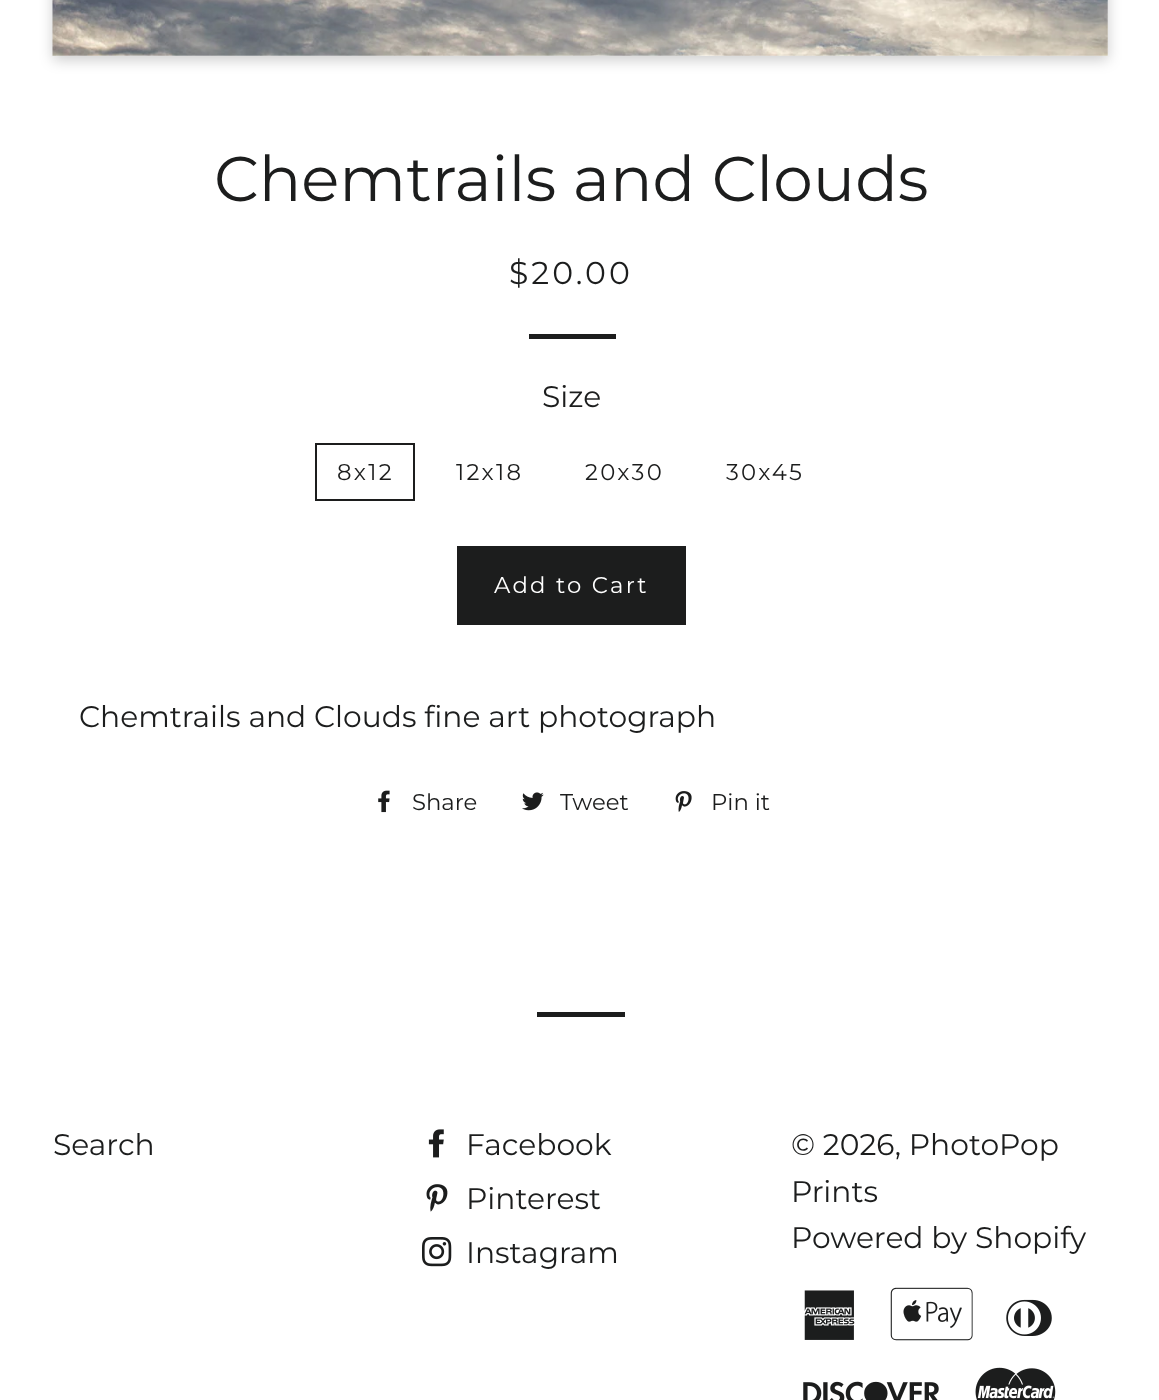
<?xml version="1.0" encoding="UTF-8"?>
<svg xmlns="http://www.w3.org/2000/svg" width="1159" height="1400">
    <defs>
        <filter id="blur1" x="-50%" y="-200%" width="200%" height="500%"><feGaussianBlur stdDeviation="7"/></filter>
    </defs>
    <rect width="100%" height="100%" fill="#FFFFFF"/>
    <rect x="53" y="-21" width="1055" height="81" fill="#000000" fill-opacity="0.2" filter="url(#blur1)"/>
    <rect x="53" y="0" width="1055" height="56" fill="#F7F7F7"/>
    <image x="52" y="0" width="1056" height="56" href="img_01.png"/>
    <text x="214" y="201" font-family="Montserrat" font-size="63" font-weight="100" fill="#1C1D1D">Chemtrails and Clouds</text>
    <text x="509" y="284" font-family="Montserrat" font-size="31.5" font-weight="100" letter-spacing="3" fill="#1C1D1D">$20.00</text>
    <rect x="529" y="334" width="87" height="5" fill="#1C1D1D"/>
    <text x="542" y="407" font-family="Montserrat" font-size="29.75" font-weight="100" fill="#1C1D1D">Size</text>
    <rect x="316" y="444" width="98" height="56" fill="none" stroke="#1C1D1D" stroke-width="2"/>
    <text x="337" y="480" font-family="Montserrat" font-size="22.75" font-weight="100" letter-spacing="2.25" fill="#1C1D1D">8x12</text>
    <text x="456" y="480" font-family="Montserrat" font-size="22.75" font-weight="100" letter-spacing="2.25" fill="#1C1D1D">12x18</text>
    <text x="585" y="480" font-family="Montserrat" font-size="22.75" font-weight="100" letter-spacing="2.25" fill="#1C1D1D">20x30</text>
    <text x="726" y="480" font-family="Montserrat" font-size="22.75" font-weight="100" letter-spacing="2.25" fill="#1C1D1D">30x45</text>
    <rect x="457" y="546" width="229" height="79" fill="#1C1D1D"/>
    <text x="494" y="593" font-family="Montserrat" font-size="22.75" font-weight="100" letter-spacing="2.25" fill="#FFFFFF">Add to Cart</text>
    <text x="79" y="727" font-family="Montserrat" font-size="29.75" font-weight="100" fill="#1C1D1D">Chemtrails and Clouds fine art photograph</text>
    <image x="378" y="790" width="12" height="23" href="img_02.png"/>
    <text x="412" y="810" font-family="Montserrat" font-size="22.75" font-weight="100" fill="#1C1D1D">Share</text>
    <image x="522" y="792" width="22" height="19" href="img_03.png"/>
    <text x="560" y="810" font-family="Montserrat" font-size="22.75" font-weight="100" fill="#1C1D1D">Tweet</text>
    <image x="675" y="791" width="17" height="21" href="img_04.png"/>
    <text x="711" y="810" font-family="Montserrat" font-size="22.75" font-weight="100" fill="#1C1D1D">Pin it</text>
    <rect x="537" y="1012" width="88" height="5" fill="#1C1D1D"/>
    <text x="53" y="1155" font-family="Montserrat" font-size="29.75" font-weight="100" fill="#1C1D1D">Search</text>
    <image x="428" y="1129" width="16" height="29" href="img_05.png"/>
    <text x="466" y="1155" font-family="Montserrat" font-size="29.75" font-weight="100" fill="#1C1D1D">Facebook</text>
    <image x="426" y="1184" width="22" height="28" href="img_06.png"/>
    <text x="466" y="1209" font-family="Montserrat" font-size="29.75" font-weight="100" fill="#1C1D1D">Pinterest</text>
    <image x="422" y="1237" width="30" height="30" href="img_07.png"/>
    <text x="466" y="1263" font-family="Montserrat" font-size="29.75" font-weight="100" fill="#1C1D1D">Instagram</text>
    <text font-family="Montserrat" font-size="29.75" font-weight="100" fill="#1C1D1D">
        <tspan x="791" y="1155">© 2026, PhotoPop</tspan>
        <tspan x="791" y="1202">Prints</tspan>
        <tspan x="791" y="1248">Powered by Shopify</tspan>
    </text>
    <image x="804" y="1290" width="51" height="50" href="img_08.png"/>
    <image x="890" y="1287" width="83" height="54" href="img_09.png"/>
    <image x="1006" y="1299" width="46" height="37" href="img_10.png"/>
    <image x="803" y="1381" width="136" height="19" href="img_11.png"/>
    <image x="975" y="1367" width="81" height="33" href="img_12.png"/>
</svg>
